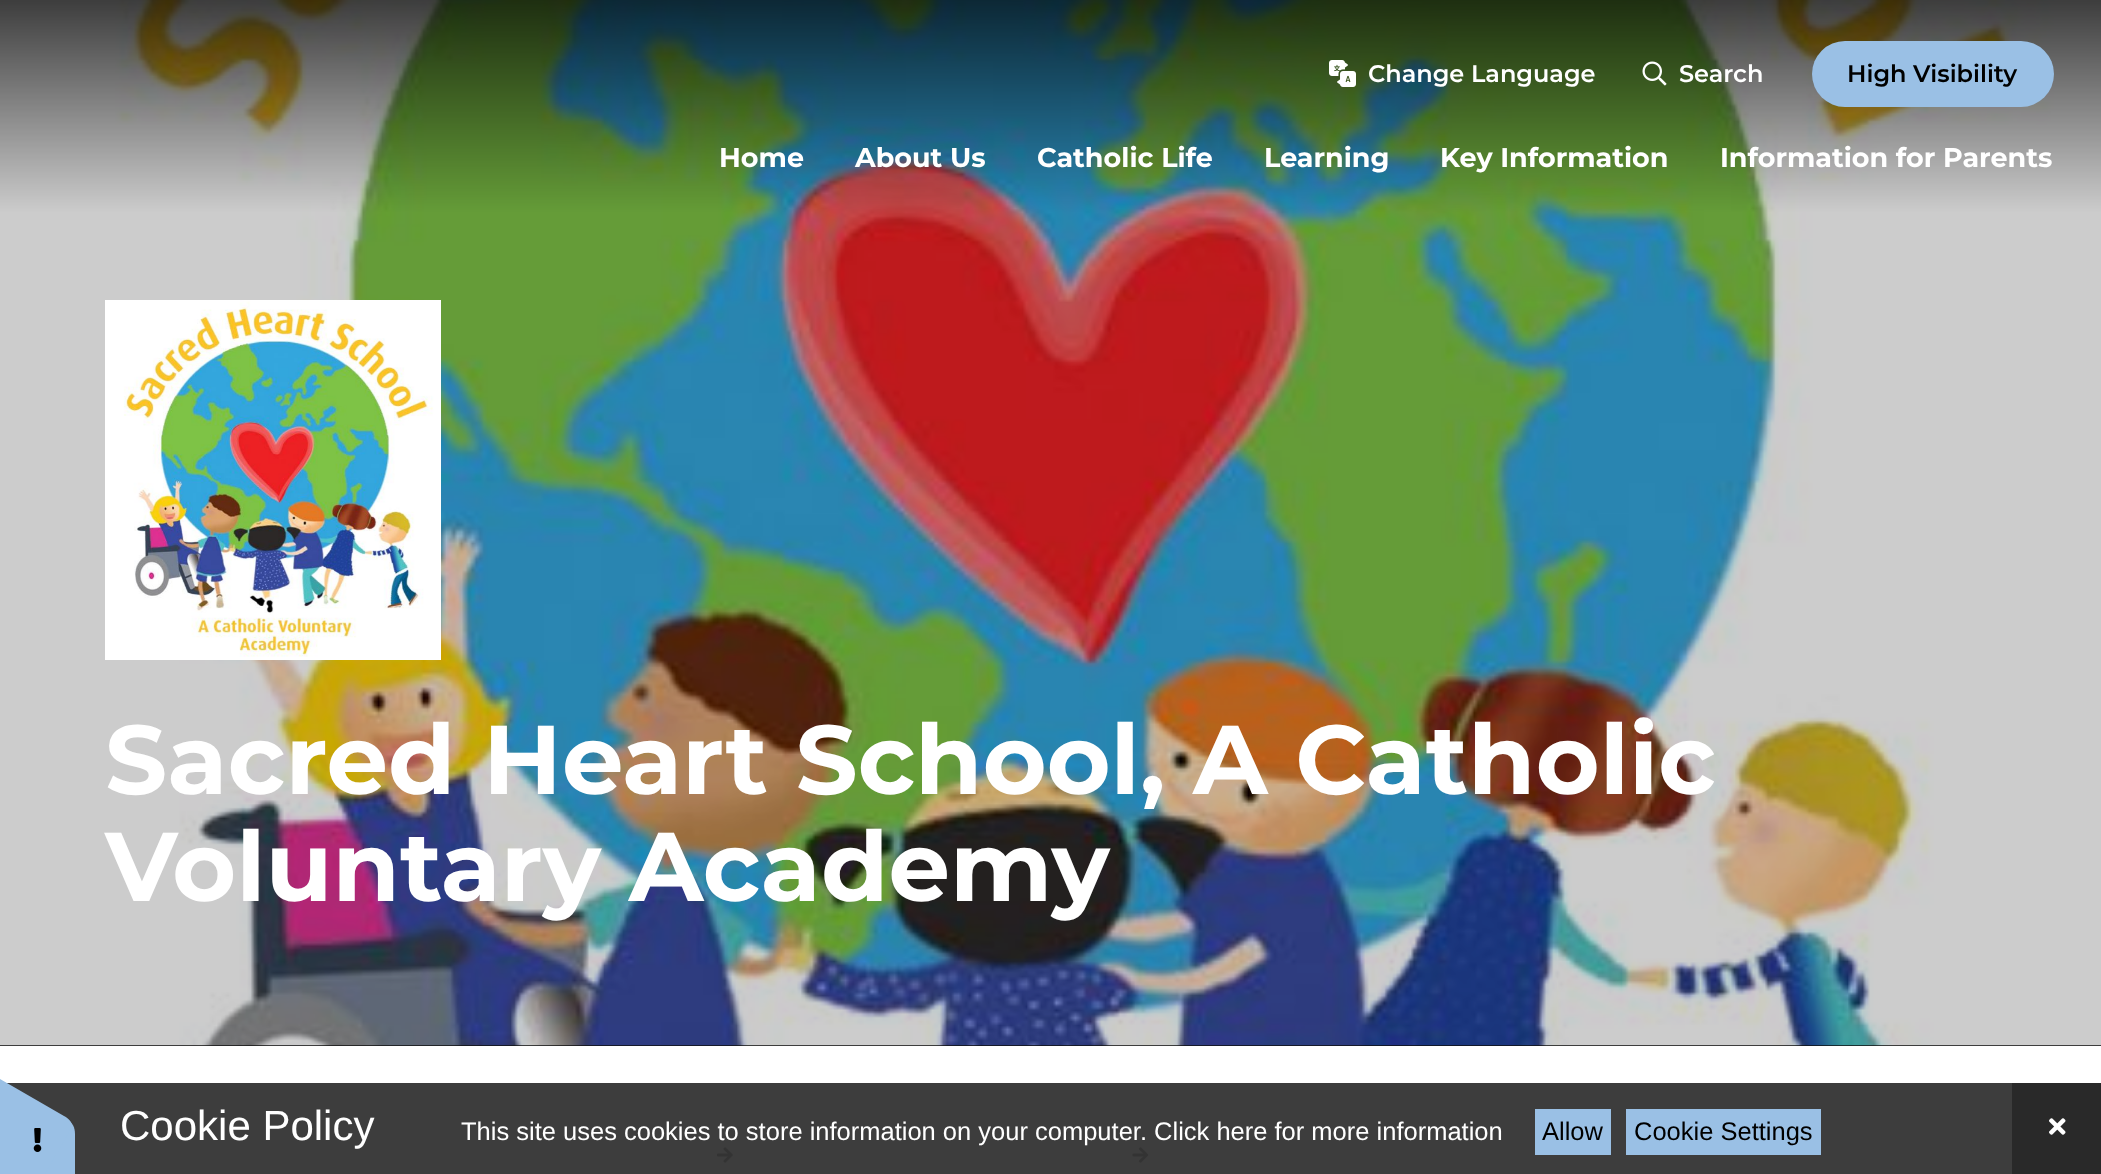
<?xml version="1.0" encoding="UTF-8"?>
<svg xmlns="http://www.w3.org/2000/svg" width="2101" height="1174">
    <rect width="100%" height="100%" fill="#FFFFFF"/>
    <rect x="7" y="1083" width="2005" height="91" fill="#3D3D3D"/>
    <rect x="0" y="1045" width="2101" height="1" fill="#0E0E0E"/>
    <image x="0" y="0" width="2101" height="1046" href="img_03.png"/>
    <image x="1329" y="60" width="27" height="27" href="img_01.png"/>
    <text x="1368" y="82" font-family="Montserrat" font-size="24" font-weight="600" fill="#FFFFFF">Change Language</text>
    <image x="1642" y="61" width="25" height="25" href="img_02.png"/>
    <text x="1679" y="82" font-family="Montserrat" font-size="24" font-weight="600" fill="#FFFFFF">Search</text>
    <rect x="1812" y="41" width="242" height="66" rx="33" fill="#9AC0E5"/>
    <text x="1847" y="82" font-family="Montserrat" font-size="24" font-weight="600" fill="#000000">High Visibility</text>
    <text x="719" y="167" font-family="Montserrat" font-size="27" font-weight="700" fill="#FFFFFF">Home</text>
    <text x="855" y="167" font-family="Montserrat" font-size="27" font-weight="700" fill="#FFFFFF">About Us</text>
    <text x="1037" y="167" font-family="Montserrat" font-size="27" font-weight="700" fill="#FFFFFF">Catholic Life</text>
    <text x="1264" y="167" font-family="Montserrat" font-size="27" font-weight="700" fill="#FFFFFF">Learning</text>
    <text x="1440" y="167" font-family="Montserrat" font-size="27" font-weight="700" fill="#FFFFFF">Key Information</text>
    <text x="1720" y="167" font-family="Montserrat" font-size="27" font-weight="700" fill="#FFFFFF">Information for Parents</text>
    <image x="105" y="300" width="336" height="360" href="img_04.png"/>
    <text font-family="Montserrat" font-size="97.5" font-weight="700" fill="#FFFFFF">
        <tspan x="105" y="794">Sacred Heart School, A Catholic</tspan>
        <tspan x="105" y="901">Voluntary Academy</tspan>
    </text>
    <image x="717" y="1147" width="16" height="16" href="img_05.png"/>
    <image x="1132" y="1147" width="17" height="16" href="img_06.png"/>
    <path d="M 75 1134 V 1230 C 75 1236 72 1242 69 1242 H -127 C -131 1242 -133 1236 -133 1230 V 1134 C -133 1127 -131 1122 -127 1122 H 69 C 72 1122 75 1127 75 1134 Z" fill="#9AC0E5"/>
    <path d="M -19 1068 L 64 1116 C 70 1119 73 1124 72 1127 L -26 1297 C -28 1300 -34 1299 -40 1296 L -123 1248 C -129 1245 -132 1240 -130 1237 L -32 1067 C -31 1064 -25 1065 -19 1068 Z" fill="#9AC0E5"/>
    <image x="33" y="1128" width="9" height="24" href="img_07.png"/>
    <text x="120" y="1140" font-family="Liberation Sans" font-size="42" fill="#FFFFFF">Cookie Policy</text>
    <text x="461" y="1140" font-family="Liberation Sans" font-size="25.5" fill="#FFFFFF">This site uses cookies to store information on your computer. Click here for more information</text>
    <rect x="1535" y="1109" width="76" height="46" fill="#9AC0E5"/>
    <text x="1542" y="1140" font-family="Liberation Sans" font-size="25.5" fill="#000000">Allow</text>
    <rect x="1626" y="1109" width="195" height="46" fill="#9AC0E5"/>
    <text x="1634" y="1140" font-family="Liberation Sans" font-size="25.5" fill="#000000">Cookie Settings</text>
    <rect x="2012" y="1083" width="89" height="91" fill="#292929"/>
    <image x="2049" y="1118" width="17" height="17" href="img_08.png"/>
</svg>
